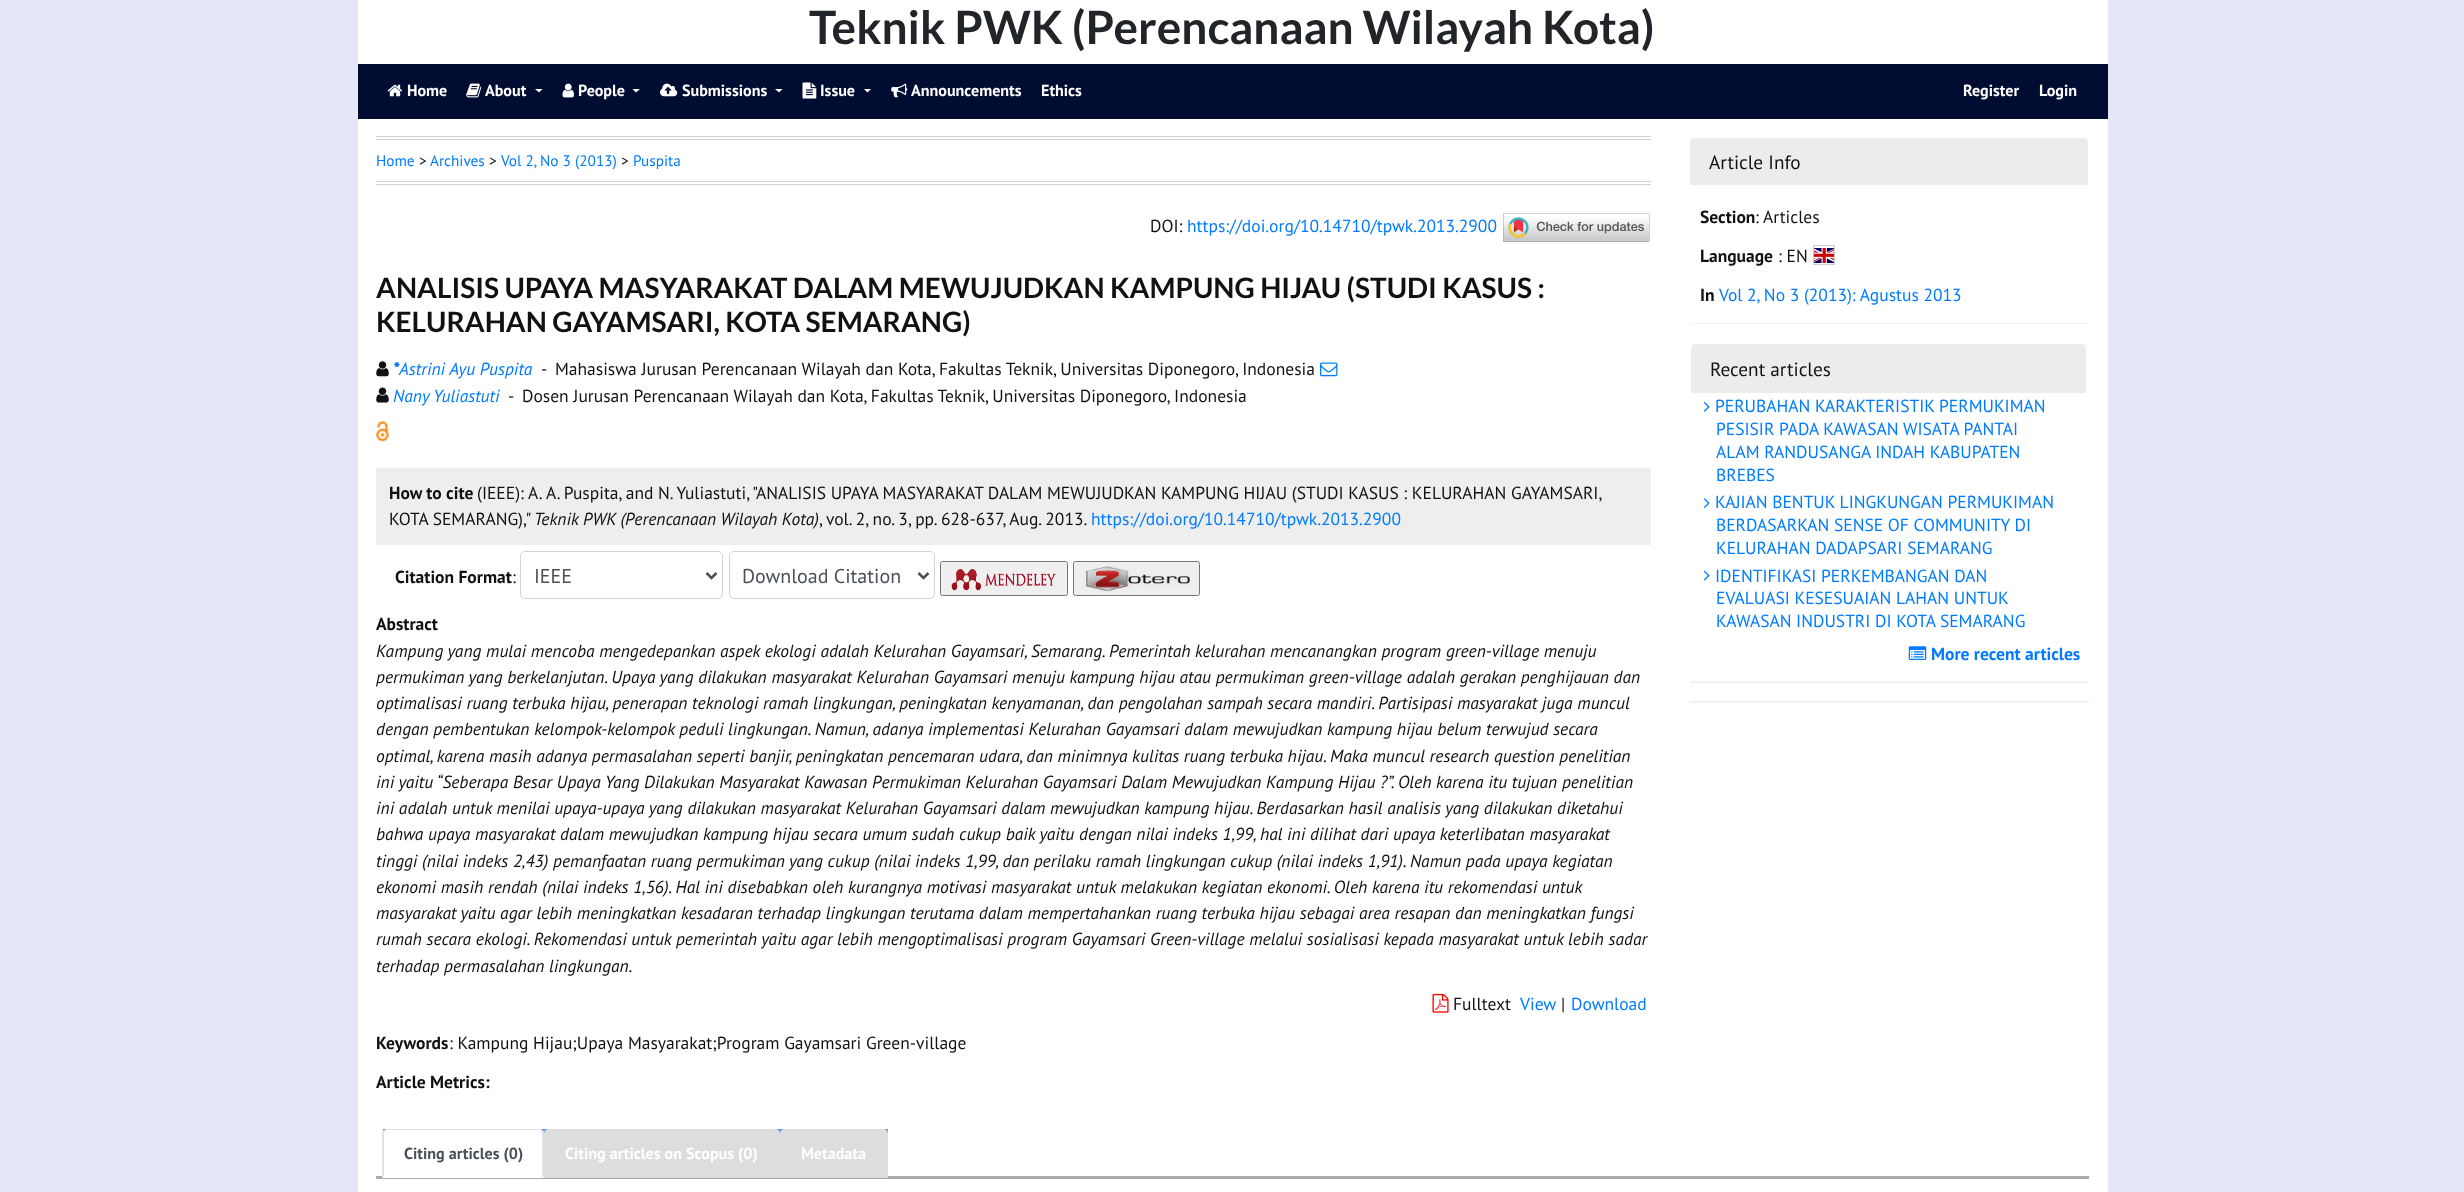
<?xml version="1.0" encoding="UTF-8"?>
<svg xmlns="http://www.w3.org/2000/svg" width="2464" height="1192">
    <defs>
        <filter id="blur1" x="-50%" y="-200%" width="200%" height="500%"><feGaussianBlur stdDeviation="0.5"/></filter>
    </defs>
    <rect width="100%" height="100%" fill="#E6E6FA"/>
    <rect x="358" y="0" width="1750" height="1192" fill="#FFFFFF"/>
    <text x="809" y="44" font-family="Lato" font-size="45.9" font-weight="700" fill="#212529">Teknik PWK (Perencanaan Wilayah Kota)</text>
    <rect x="358" y="64" width="1750" height="55" fill="#000C32"/>
    <image x="387" y="84" width="16" height="13" href="img_01.png"/>
    <text x="407" y="96" font-family="PT Sans" font-size="16.1" font-weight="700" fill="#FFFFFF">Home</text>
    <image x="466" y="83" width="16" height="15" href="img_02.png"/>
    <text x="485" y="96" font-family="PT Sans" font-size="16.1" font-weight="700" fill="#FFFFFF">About</text>
    <path d="M 535 89 H 542.5 L 539 92.5 Z" fill="#FFFFFF"/>
    <image x="562" y="83" width="12" height="15" href="img_03.png"/>
    <text x="578" y="96" font-family="PT Sans" font-size="16.1" font-weight="700" fill="#FFFFFF">People</text>
    <path d="M 632.5 89 H 640 L 636 92.5 Z" fill="#FFFFFF"/>
    <image x="660" y="83" width="18" height="14" href="img_04.png"/>
    <text x="682" y="96" font-family="PT Sans" font-size="16.1" font-weight="700" fill="#FFFFFF">Submissions</text>
    <path d="M 775 89 H 782.5 L 779 92.5 Z" fill="#FFFFFF"/>
    <image x="802" y="82" width="15" height="17" href="img_05.png"/>
    <text x="820" y="96" font-family="PT Sans" font-size="16.1" font-weight="700" fill="#FFFFFF">Issue</text>
    <path d="M 864 89 H 871 L 867.5 92.5 Z" fill="#FFFFFF"/>
    <image x="891" y="83" width="17" height="15" href="img_06.png"/>
    <text x="911" y="96" font-family="PT Sans" font-size="16.1" font-weight="700" fill="#FFFFFF">Announcements</text>
    <text x="1041" y="96" font-family="PT Sans" font-size="16.1" font-weight="700" fill="#FFFFFF">Ethics</text>
    <text x="1963" y="96" font-family="PT Sans" font-size="16.1" font-weight="700" fill="#FFFFFF">Register</text>
    <text x="2039" y="96" font-family="PT Sans" font-size="16.1" font-weight="700" fill="#FFFFFF">Login</text>
    <rect x="376" y="136" width="1275" height="1" fill="#D1D3D5"/>
    <rect x="376" y="139" width="1275" height="1" fill="#D1D3D5"/>
    <rect x="376" y="181" width="1275" height="1" fill="#D1D3D5"/>
    <rect x="376" y="184" width="1275" height="1" fill="#D1D3D5"/>
    <text x="376" y="166" font-family="PT Sans" font-size="15.25" fill="#007BFF">Home</text>
    <text x="419" y="166" font-family="PT Sans" font-size="15.25" fill="#111111">&gt;</text>
    <text x="430" y="166" font-family="PT Sans" font-size="15.25" fill="#007BFF">Archives</text>
    <text x="489" y="166" font-family="PT Sans" font-size="15.25" fill="#111111">&gt;</text>
    <text x="501" y="166" font-family="PT Sans" font-size="15.25" fill="#007BFF">Vol 2, No 3 (2013)</text>
    <text x="621" y="166" font-family="PT Sans" font-size="15.25" fill="#111111">&gt;</text>
    <text x="633" y="166" font-family="PT Sans" font-size="15.25" fill="#007BFF">Puspita</text>
    <text x="1150" y="232" font-family="PT Sans" font-size="17.5" fill="#111111">DOI:</text>
    <text x="1187" y="232" font-family="PT Sans" font-size="17.5" fill="#007BFF">https://doi.org/10.14710/tpwk.2013.2900</text>
    <image x="1503" y="213" width="147" height="29" href="img_07.png"/>
    <text font-family="Lato" font-size="28" font-weight="700" fill="#111111">
        <tspan x="376" y="298">ANALISIS UPAYA MASYARAKAT DALAM MEWUJUDKAN KAMPUNG HIJAU (STUDI KASUS :</tspan>
        <tspan x="376" y="332">KELURAHAN GAYAMSARI, KOTA SEMARANG)</tspan>
    </text>
    <image x="376" y="361" width="13" height="16" href="img_08.png"/>
    <text x="393" y="375" font-family="PT Sans" font-size="17.5" font-weight="700" font-style="italic" fill="#007BFF">*</text>
    <text x="399" y="375" font-family="PT Sans" font-size="17.5" font-style="italic" fill="#007BFF">Astrini Ayu Puspita</text>
    <text x="541" y="375" font-family="PT Sans" font-size="17.5" fill="#111111">-</text>
    <text x="555" y="375" font-family="PT Sans" font-size="17.5" fill="#111111">Mahasiswa Jurusan Perencanaan Wilayah dan Kota, Fakultas Teknik, Universitas Diponegoro, Indonesia</text>
    <image x="1320" y="362" width="18" height="15" href="img_09.png"/>
    <image x="376" y="387" width="13" height="16" href="img_10.png"/>
    <text x="393" y="402" font-family="PT Sans" font-size="17.5" font-style="italic" fill="#007BFF">Nany Yuliastuti</text>
    <text x="508" y="402" font-family="PT Sans" font-size="17.5" fill="#111111">-</text>
    <text x="522" y="402" font-family="PT Sans" font-size="17.5" fill="#111111">Dosen Jurusan Perencanaan Wilayah dan Kota, Fakultas Teknik, Universitas Diponegoro, Indonesia</text>
    <image x="376" y="421" width="13" height="21" href="img_11.png"/>
    <rect x="376" y="468" width="1275" height="77" fill="#EEEEEE"/>
    <text x="389" y="499" font-family="PT Sans" font-size="17.5" font-weight="700" fill="#111111">How to cite</text>
    <text x="477" y="499" font-family="PT Sans" font-size="17.5" fill="#111111">(IEEE): A.</text>
    <text x="546" y="499" font-family="PT Sans" font-size="17.5" fill="#111111">A. Puspita, and N. Yuliastuti, "ANALISIS UPAYA MASYARAKAT DALAM MEWUJUDKAN KAMPUNG HIJAU (STUDI KASUS : KELURAHAN GAYAMSARI,</text>
    <text x="389" y="525" font-family="PT Sans" font-size="17.5" fill="#111111">KOTA SEMARANG),"</text>
    <text x="534" y="525" font-family="PT Sans" font-size="17.5" font-style="italic" fill="#111111">Teknik PWK (Perencanaan Wilayah Kota)</text>
    <text x="819" y="525" font-family="PT Sans" font-size="17.5" fill="#111111">, vol. 2, no. 3, pp. 628-637, Aug. 2013.</text>
    <text x="1091" y="525" font-family="PT Sans" font-size="17.5" fill="#007BFF">https://doi.org/10.14710/tpwk.2013.2900</text>
    <text x="395" y="583" font-family="PT Sans" font-size="17.5" font-weight="700" fill="#111111">Citation Format</text>
    <text x="512" y="583" font-family="PT Sans" font-size="17.5" fill="#111111">:</text>
    <rect x="520.5" y="551.5" width="202" height="47" rx="4.5" fill="none" stroke="#CED4DA"/>
    <path d="M 706.5 573 L 711.5 578 L 716.5 573" fill="none" stroke="#495057" stroke-width="2.5"/>
    <text x="534" y="583" font-family="PT Sans" font-size="20" fill="#495057">IEEE</text>
    <rect x="729.5" y="551.5" width="205" height="47" rx="4.5" fill="none" stroke="#CED4DA"/>
    <path d="M 918.5 573 L 923.5 578 L 928.5 573" fill="none" stroke="#495057" stroke-width="2.5"/>
    <text x="742" y="583" font-family="PT Sans" font-size="20" fill="#495057">Download Citation</text>
    <rect x="940.5" y="561.5" width="127" height="34" rx="2" fill="#EFEFEF" stroke="#767676"/>
    <image x="951" y="569" width="105" height="22" href="img_12.png"/>
    <rect x="1073.5" y="561.5" width="126" height="34" rx="2" fill="#EFEFEF" stroke="#767676"/>
    <image x="1084" y="566" width="106" height="27" href="img_13.png"/>
    <text x="376" y="630" font-family="PT Sans" font-size="17.5" font-weight="700" fill="#111111">Abstract</text>
    <text font-family="PT Sans" font-size="17.5" font-style="italic" fill="#111111">
        <tspan x="376" y="657">Kampung yang mulai mencoba mengedepankan aspek ekologi adalah Kelurahan Gayamsari, Semarang. Pemerintah kelurahan mencanangkan program green-village menuju</tspan>
        <tspan x="376" y="683">permukiman yang berkelanjutan. Upaya yang dilakukan masyarakat Kelurahan Gayamsari menuju kampung hijau atau permukiman green-village adalah gerakan penghijauan dan</tspan>
        <tspan x="376" y="709">optimalisasi ruang terbuka hijau, penerapan teknologi ramah lingkungan, peningkatan kenyamanan, dan pengolahan sampah secara mandiri. Partisipasi masyarakat juga muncul</tspan>
        <tspan x="376" y="735">dengan pembentukan kelompok-kelompok peduli lingkungan. Namun, adanya implementasi Kelurahan Gayamsari dalam mewujudkan kampung hijau belum terwujud secara</tspan>
        <tspan x="376" y="762">optimal, karena masih adanya permasalahan seperti banjir, peningkatan pencemaran udara, dan minimnya kulitas ruang terbuka hijau. Maka muncul research question penelitian</tspan>
        <tspan x="376" y="788">ini yaitu “Seberapa Besar Upaya Yang Dilakukan Masyarakat Kawasan Permukiman Kelurahan Gayamsari Dalam Mewujudkan Kampung Hijau ?”. Oleh karena itu tujuan penelitian</tspan>
        <tspan x="376" y="814">ini adalah untuk menilai upaya-upaya yang dilakukan masyarakat Kelurahan Gayamsari dalam mewujudkan kampung hijau. Berdasarkan hasil analisis yang dilakukan diketahui</tspan>
        <tspan x="376" y="840">bahwa upaya masyarakat dalam mewujudkan kampung hijau secara umum sudah cukup baik yaitu dengan nilai indeks 1,99, hal ini dilihat dari upaya keterlibatan masyarakat</tspan>
        <tspan x="376" y="867">tinggi (nilai indeks 2,43) pemanfaatan ruang permukiman</tspan>
    </text>
    <text x="789" y="867" font-family="PT Sans" font-size="17.5" font-style="italic" fill="#111111">yang cukup (nilai indeks 1,99, dan perilaku ramah lingkungan cukup (nilai indeks 1,91). Namun pada upaya kegiatan</text>
    <text font-family="PT Sans" font-size="17.5" font-style="italic" fill="#111111">
        <tspan x="376" y="893">ekonomi masih rendah (nilai indeks 1,56). Hal ini disebabkan oleh kurangnya motivasi masyarakat untuk melakukan kegiatan ekonomi. Oleh karena itu rekomendasi untuk</tspan>
        <tspan x="376" y="919">masyarakat yaitu agar lebih meningkatkan kesadaran terhadap lingkungan terutama dalam mempertahankan ruang terbuka hijau sebagai area resapan dan meningkatkan fungsi</tspan>
        <tspan x="376" y="945">rumah secara ekologi. Rekomendasi untuk pemerintah yaitu agar lebih mengoptimalisasi program Gayamsari Green-village melalui sosialisasi kepada masyarakat untuk lebih sadar</tspan>
        <tspan x="376" y="972">terhadap permasalahan lingkungan.</tspan>
    </text>
    <image x="1432" y="993" width="17" height="20" href="img_14.png"/>
    <text x="1453" y="1010" font-family="PT Sans" font-size="17.5" fill="#111111">Fulltext</text>
    <text x="1520" y="1010" font-family="PT Sans" font-size="17.5" fill="#007BFF">View</text>
    <text x="1561" y="1010" font-family="PT Sans" font-size="17.5" fill="#111111">|</text>
    <text x="1571" y="1010" font-family="PT Sans" font-size="17.5" fill="#007BFF">Download</text>
    <text x="376" y="1049" font-family="PT Sans" font-size="17.5" font-weight="700" fill="#111111">Keywords</text>
    <text x="449" y="1049" font-family="PT Sans" font-size="17.5" fill="#111111">: Kampung Hijau;Upaya Masyarakat;Program Gayamsari Green-village</text>
    <text x="376" y="1088" font-family="PT Sans" font-size="17.5" font-weight="700" fill="#111111">Article Metrics:</text>
    <rect x="1689" y="138" width="400" height="186" fill="#000000" fill-opacity="0.05" filter="url(#blur1)"/>
    <rect x="1689" y="138" width="400" height="185" fill="#FFFFFF"/>
    <path d="M 1694 138 H 2084 C 2086 138 2088 140 2088 142 V 185 H 1690 V 142 C 1690 140 1692 138 1694 138 Z" fill="#ECECED"/>
    <text x="1709" y="169" font-family="PT Sans" font-size="19.25" fill="#111111">Article Info</text>
    <text x="1700" y="223" font-family="PT Sans" font-size="17.5" font-weight="700" fill="#111111">Section</text>
    <text x="1755" y="223" font-family="PT Sans" font-size="17.5" fill="#111111">: Articles</text>
    <text x="1700" y="262" font-family="PT Sans" font-size="17.5" font-weight="700" fill="#111111">Language</text>
    <text x="1778" y="262" font-family="PT Sans" font-size="17.5" fill="#111111">: EN</text>
    <image x="1814" y="248" width="20" height="16" href="img_15.png"/>
    <rect x="1813.5" y="245.5" width="21" height="19" fill="none" stroke="#CCCCCC"/>
    <text x="1700" y="301" font-family="PT Sans" font-size="17.5" font-weight="700" fill="#111111">In</text>
    <text x="1719" y="301" font-family="PT Sans" font-size="17.5" fill="#007BFF">Vol 2, No 3 (2013): Agustus 2013</text>
    <rect x="1689" y="343" width="400" height="360" fill="#000000" fill-opacity="0.05" filter="url(#blur1)"/>
    <rect x="1689" y="343" width="400" height="358" fill="#FFFFFF"/>
    <rect x="1690" y="344" width="398" height="339" fill="#000000" fill-opacity="0.05" filter="url(#blur1)"/>
    <rect x="1690" y="344" width="398" height="337" fill="#FFFFFF"/>
    <path d="M 1695 344 H 2082 C 2084 344 2086 346 2086 348 V 393 H 1691 V 348 C 1691 346 1693 344 1695 344 Z" fill="#ECECED"/>
    <text x="1710" y="376" font-family="PT Sans" font-size="19.25" fill="#111111">Recent articles</text>
    <image x="1703" y="402" width="7" height="10" href="img_16.png"/>
    <text x="1715" y="412" font-family="PT Sans" font-size="17.5" fill="#007BFF">PERUBAHAN KARAKTERISTIK PERMUKIMAN</text>
    <text font-family="PT Sans" font-size="17.5" fill="#007BFF">
        <tspan x="1716" y="435">PESISIR PADA KAWASAN WISATA PANTAI</tspan>
        <tspan x="1716" y="458">ALAM RANDUSANGA INDAH KABUPATEN</tspan>
        <tspan x="1716" y="481">BREBES</tspan>
    </text>
    <image x="1703" y="498" width="7" height="10" href="img_17.png"/>
    <text x="1715" y="508" font-family="PT Sans" font-size="17.5" fill="#007BFF">KAJIAN BENTUK LINGKUNGAN PERMUKIMAN</text>
    <text font-family="PT Sans" font-size="17.5" fill="#007BFF">
        <tspan x="1716" y="531">BERDASARKAN SENSE OF COMMUNITY DI</tspan>
        <tspan x="1716" y="554">KELURAHAN DADAPSARI SEMARANG</tspan>
    </text>
    <image x="1703" y="570" width="7" height="11" href="img_18.png"/>
    <text x="1715" y="582" font-family="PT Sans" font-size="17.5" fill="#007BFF">IDENTIFIKASI PERKEMBANGAN DAN</text>
    <text font-family="PT Sans" font-size="17.5" fill="#007BFF">
        <tspan x="1716" y="604">EVALUASI KESESUAIAN LAHAN UNTUK</tspan>
        <tspan x="1716" y="627">KAWASAN INDUSTRI DI KOTA SEMARANG</tspan>
    </text>
    <image x="1908" y="646" width="19" height="14" href="img_19.png"/>
    <text x="1931" y="660" font-family="PT Sans" font-size="17.5" font-weight="700" fill="#007BFF">More recent articles</text>
    <rect x="376" y="1176" width="1713" height="3" fill="#AAAAAA"/>
    <rect x="383" y="1129" width="161" height="3" fill="#6495ED"/>
    <path d="M 388 1129 H 539 C 542 1129 544 1131 544 1134 V 1178 H 383 V 1134 C 383 1131 385 1129 388 1129 Z" fill="#FFFFFF"/>
    <path d="M 388 1129 L 384 1130 L 385 1131 L 387 1130 H 539 L 541 1131 L 542 1130 L 539 1129 Z" fill="#DEE2E6"/>
    <path d="M 542 1130 L 544 1132 V 1178 L 542 1176 V 1134 L 541 1131 Z" fill="#DEE2E6"/>
    <path d="M 544 1178 L 542 1176 H 384 L 382 1178 Z" fill="#FFFFFF"/>
    <path d="M 382 1178 L 384 1176 V 1134 C 384 1133 384 1132 385 1131 L 384 1130 L 382 1132 Z" fill="#DEE2E6"/>
    <text x="404" y="1159" font-family="PT Sans" font-size="16.1" font-weight="700" fill="#495057">Citing articles (0)</text>
    <rect x="544" y="1129" width="344" height="5" fill="#6495ED"/>
    <path d="M 549 1129 H 775 C 778 1129 780 1131 780 1134 V 1178 H 544 V 1134 C 544 1131 546 1129 549 1129 Z" fill="#DDDDDD"/>
    <text x="565" y="1159" font-family="PT Sans" font-size="16.1" font-weight="700" fill="#FFFFFF">Citing articles on Scopus (0)</text>
    <path d="M 785 1129 H 883 C 886 1129 888 1131 888 1134 V 1178 H 780 V 1134 C 780 1131 782 1129 785 1129 Z" fill="#DDDDDD"/>
    <text x="801" y="1159" font-family="PT Sans" font-size="16.1" font-weight="700" fill="#FFFFFF">Metadata</text>
</svg>
